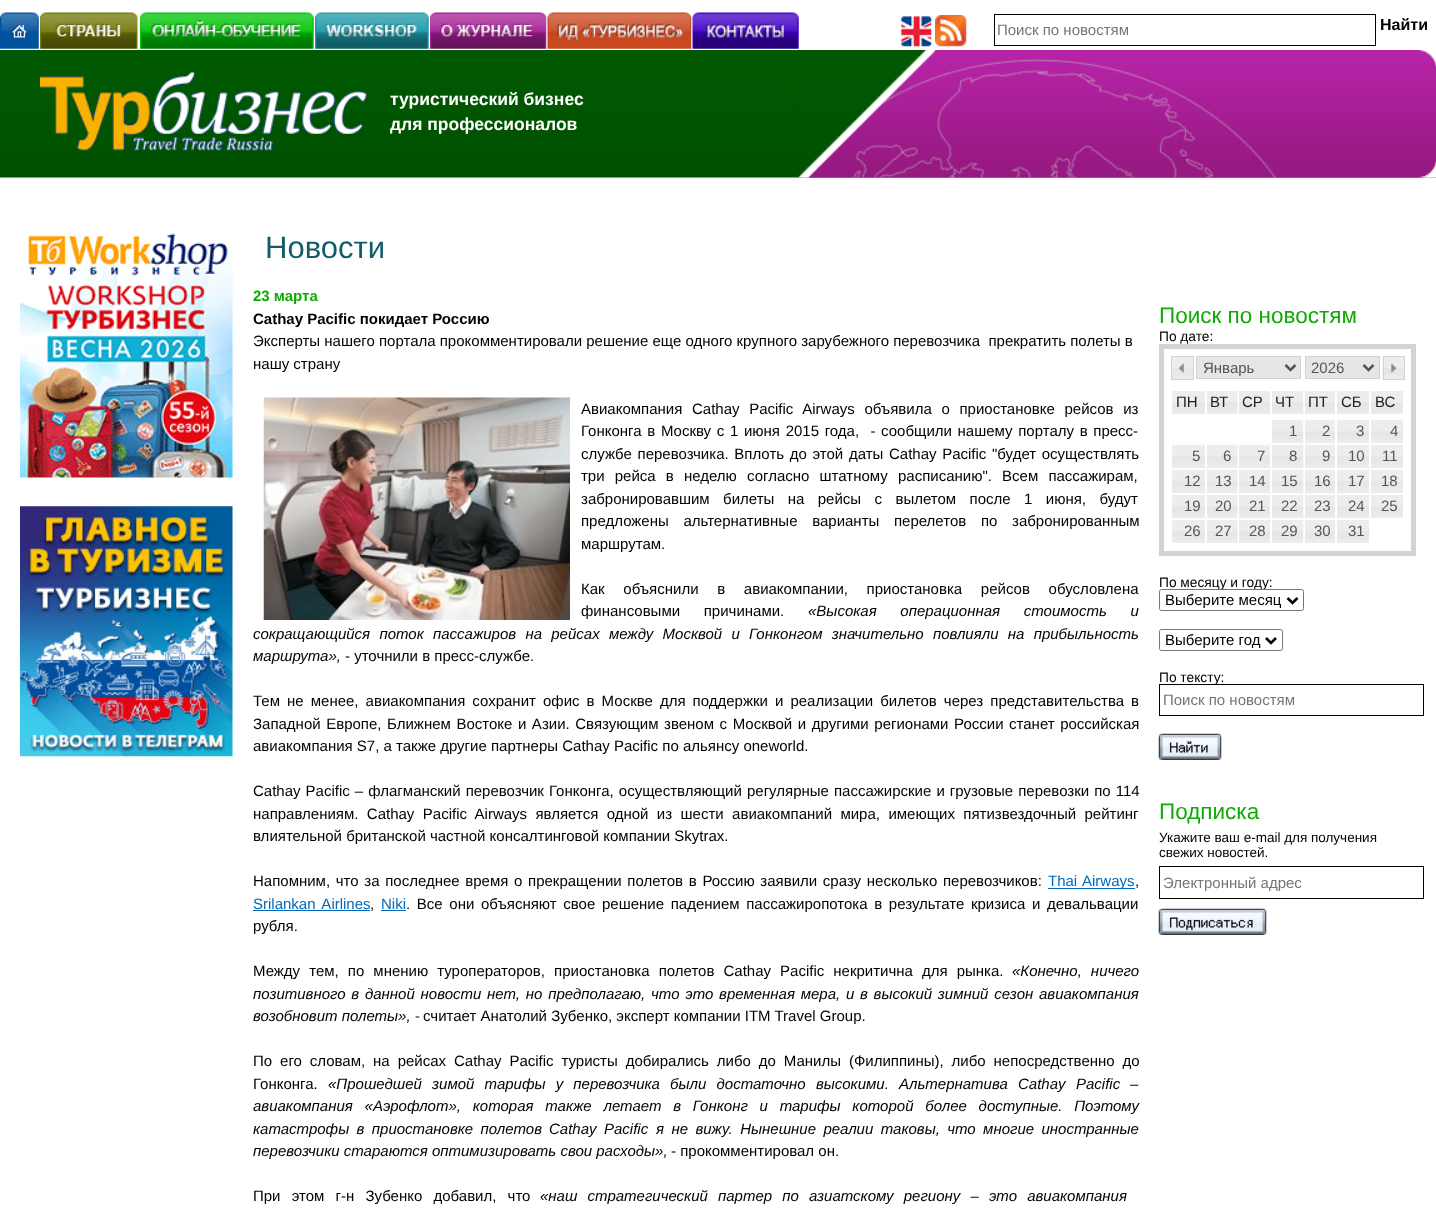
<?xml version="1.0" encoding="UTF-8"?>
<svg xmlns="http://www.w3.org/2000/svg" width="1436" height="1209">
    <defs>
        <clipPath id="clip1"><rect x="1163" y="874" width="257" height="17"/></clipPath>
    </defs>
    <rect width="100%" height="100%" fill="#FFFFFF"/>
    <image x="0" y="12" width="39" height="37" href="img_01.png"/>
    <image x="40" y="12" width="98" height="37" href="img_02.png"/>
    <image x="140" y="12" width="174" height="37" href="img_03.png"/>
    <image x="315" y="12" width="114" height="37" href="img_04.png"/>
    <image x="430" y="12" width="117" height="37" href="img_05.png"/>
    <image x="547" y="12" width="145" height="37" href="img_06.png"/>
    <image x="692" y="12" width="107" height="37" href="img_07.png"/>
    <image x="901" y="16" width="31" height="31" href="img_08.png"/>
    <image x="935" y="15" width="32" height="32" href="img_09.png"/>
    <rect x="994.5" y="14.5" width="381" height="31" fill="none" stroke="#000000"/>
    <text x="997" y="35" font-family="Liberation Sans" font-size="15" fill="#757575">Поиск по новостям</text>
    <text x="1380" y="30" font-family="Liberation Sans" font-size="16" font-weight="700" fill="#000000">Найти</text>
    <image x="0" y="50" width="1436" height="128" href="img_10.png"/>
    <image x="798" y="50" width="137" height="128" href="img_11.png"/>
    <image x="40" y="72" width="327" height="79" href="img_12.png"/>
    <text font-family="Liberation Sans" font-size="17.5" font-weight="700" fill="#FFFFFF">
        <tspan x="390" y="105">туристический бизнес</tspan>
        <tspan x="390" y="130">для профессионалов</tspan>
    </text>
    <image x="935" y="50" width="501" height="128" href="img_13.png"/>
    <image x="20" y="227" width="213" height="251" href="img_14.png"/>
    <image x="20" y="506" width="213" height="251" href="img_15.png"/>
    <text x="265" y="258" font-family="Liberation Sans" font-size="31" fill="#115D67">Новости</text>
    <text x="253" y="301" font-family="Liberation Sans" font-size="15" font-weight="700" fill="#12A905">23 марта</text>
    <text x="253" y="324" font-family="Liberation Sans" font-size="15" font-weight="700" fill="#000000">Cathay Pacific покидает Россию</text>
    <text font-family="Liberation Sans" font-size="15" fill="#000000" xml:space="preserve"><tspan x="253" y="346">Эксперты нашего портала прокомментировали решение еще одного крупного зарубежного перевозчика  прекратить полеты в</tspan><tspan x="253" y="369">нашу страну</tspan></text>
    <image x="263" y="397" width="307" height="223" href="img_16.png"/>
    <text font-family="Liberation Sans" font-size="15" fill="#000000" xml:space="preserve"><tspan x="581" y="414" word-spacing="5.5">Авиакомпания Cathay Pacific Airways объявила о приостановке рейсов из</tspan><tspan x="581" y="436" word-spacing="1.5">Гонконга в Москву с 1 июня 2015 года,  - сообщили нашему порталу в пресс-</tspan><tspan x="581" y="459" word-spacing="1.5">службе перевозчика. Вплоть до этой даты Cathay Pacific "будет осуществлять</tspan><tspan x="581" y="481" word-spacing="6">три рейса в неделю согласно штатному расписанию". Всем пассажирам,</tspan><tspan x="581" y="504" word-spacing="9.25">забронировавшим билеты на рейсы с вылетом после 1 июня, будут</tspan><tspan x="581" y="526" word-spacing="10.5">предложены альтернативные варианты перелетов по забронированным</tspan><tspan x="581" y="549">маршрутам.</tspan></text>
    <text font-family="Liberation Sans" font-size="15" fill="#000000">
        <tspan x="581" y="594" word-spacing="14.5">Как объяснили в авиакомпании, приостановка рейсов обусловлена</tspan>
        <tspan x="581" y="616" word-spacing="19.5">финансовыми причинами.</tspan>
    </text>
    <text x="808" y="616" word-spacing="19.5" font-family="Liberation Sans" font-size="15" font-style="italic" fill="#000000">«Высокая операционная стоимость и</text>
    <text font-family="Liberation Sans" font-size="15" font-style="italic" fill="#000000">
        <tspan x="253" y="639" word-spacing="5.1">сокращающийся поток пассажиров на рейсах между Москвой и Гонконгом значительно повлияли на прибыльность</tspan>
        <tspan x="253" y="661">маршрута»,</tspan>
    </text>
    <text x="345" y="661" font-family="Liberation Sans" font-size="15" fill="#000000">- уточнили в пресс-службе.</text>
    <text font-family="Liberation Sans" font-size="15" fill="#000000">
        <tspan x="253" y="706" word-spacing="2.9">Тем не менее, авиакомпания сохранит офис в Москве для поддержки и реализации билетов через представительства в</tspan>
        <tspan x="253" y="729" word-spacing="1.4">Западной Европе, Ближнем Востоке и Азии. Связующим звеном с Москвой и другими регионами России станет российская</tspan>
        <tspan x="253" y="751">авиакомпания S7, а также другие партнеры Cathay Pacific по альянсу oneworld.</tspan>
    </text>
    <text font-family="Liberation Sans" font-size="15" fill="#000000">
        <tspan x="253" y="796" word-spacing="0.9">Cathay Pacific – флагманский перевозчик Гонконга, осуществляющий регулярные пассажирские и грузовые перевозки по 114</tspan>
        <tspan x="253" y="819" word-spacing="4.25">направлениям. Cathay Pacific Airways является одной из шести авиакомпаний мира, имеющих пятизвездочный рейтинг</tspan>
        <tspan x="253" y="841">влиятельной британской частной консалтинговой компании Skytrax.</tspan>
    </text>
    <text x="253" y="886" word-spacing="1.5" font-family="Liberation Sans" font-size="15" fill="#000000">Напомним, что за последнее время о прекращении полетов в Россию заявили сразу несколько перевозчиков:</text>
    <rect x="1048" y="888" width="87" height="1" fill="#0169B9"/>
    <text x="1048" y="886" word-spacing="1.5" font-family="Liberation Sans" font-size="15" fill="#0169B9">Thai Airways</text>
    <text x="1135" y="886" font-family="Liberation Sans" font-size="15" fill="#000000">,</text>
    <text x="253" y="909" word-spacing="2.5" font-family="Liberation Sans" font-size="15" fill="#0169B9">Srilankan Airlines</text>
    <rect x="253" y="910" width="117" height="1" fill="#0169B9"/>
    <text x="370" y="909" font-family="Liberation Sans" font-size="15" fill="#000000">,</text>
    <text x="381" y="909" font-family="Liberation Sans" font-size="15" fill="#0169B9">Niki</text>
    <rect x="381" y="910" width="25" height="1" fill="#0169B9"/>
    <text x="406" y="909" word-spacing="2.5" font-family="Liberation Sans" font-size="15" fill="#000000">. Все они объясняют свое решение падением пассажиропотока в результате кризиса и девальвации</text>
    <text x="253" y="931" font-family="Liberation Sans" font-size="15" fill="#000000">рубля.</text>
    <text x="253" y="976" word-spacing="4.9" font-family="Liberation Sans" font-size="15" fill="#000000">Между тем, по мнению туроператоров, приостановка полетов Cathay Pacific некритична для рынка.</text>
    <text x="1012" y="976" word-spacing="4.9" font-family="Liberation Sans" font-size="15" font-style="italic" fill="#000000">«Конечно, ничего</text>
    <text font-family="Liberation Sans" font-size="15" font-style="italic" fill="#000000">
        <tspan x="253" y="999" word-spacing="1.6">позитивного в данной новости нет, но предполагаю, что это временная мера, и в высокий зимний сезон авиакомпания</tspan>
        <tspan x="253" y="1021">возобновит полеты», -</tspan>
    </text>
    <text x="423" y="1021" font-family="Liberation Sans" font-size="15" fill="#000000">считает Анатолий Зубенко, эксперт компании ITM Travel Group.</text>
    <text font-family="Liberation Sans" font-size="15" fill="#000000">
        <tspan x="253" y="1066" word-spacing="3.75">По его словам, на рейсах Cathay Pacific туристы добирались либо до Манилы (Филиппины), либо непосредственно до</tspan>
        <tspan x="253" y="1089">Гонконга.</tspan>
    </text>
    <text x="328" y="1089" word-spacing="6" font-family="Liberation Sans" font-size="15" font-style="italic" fill="#000000">«Прошедшей зимой тарифы у перевозчика были достаточно высокими. Альтернатива</text>
    <text x="1018" y="1089" font-family="Liberation Sans" font-size="15" font-style="italic" fill="#000000">Cathay</text>
    <text x="1076" y="1089" font-family="Liberation Sans" font-size="15" font-style="italic" fill="#000000">Pacific</text>
    <text x="1130" y="1089" font-family="Liberation Sans" font-size="15" font-style="italic" fill="#000000">–</text>
    <text font-family="Liberation Sans" font-size="15" font-style="italic" fill="#000000">
        <tspan x="253" y="1111" word-spacing="7.6">авиакомпания «Аэрофлот», которая также летает в Гонконг и тарифы которой более доступные. Поэтому</tspan>
        <tspan x="253" y="1134" word-spacing="3.25">катастрофы в приостановке полетов</tspan>
    </text>
    <text x="549" y="1134" font-family="Liberation Sans" font-size="15" font-style="italic" fill="#000000">Cathay</text>
    <text x="604" y="1134" font-family="Liberation Sans" font-size="15" font-style="italic" fill="#000000">Pacific</text>
    <text x="656" y="1134" word-spacing="3.25" font-family="Liberation Sans" font-size="15" font-style="italic" fill="#000000">я не вижу. Нынешние реалии таковы, что многие иностранные</text>
    <text x="253" y="1156" font-family="Liberation Sans" font-size="15" font-style="italic" fill="#000000">перевозчики стараются оптимизировать свои расходы»,</text>
    <text x="671" y="1156" font-family="Liberation Sans" font-size="15" fill="#000000">- прокомментировал он.</text>
    <text x="253" y="1201" word-spacing="7" font-family="Liberation Sans" font-size="15" fill="#000000">При этом г-н Зубенко добавил, что</text>
    <text x="540" y="1201" word-spacing="6" font-family="Liberation Sans" font-size="15" font-style="italic" fill="#000000">«наш стратегический партер по азиатскому региону – это авиакомпания</text>
    <text x="1159" y="323" font-family="Liberation Sans" font-size="22.5" fill="#12A905">Поиск по новостям</text>
    <text x="1159" y="341" font-family="Liberation Sans" font-size="13.75" fill="#000000">По дате:</text>
    <rect x="1161.5" y="346.5" width="252" height="207" fill="none" stroke="#D3D3D3" stroke-width="5"/>
    <image x="1172" y="357" width="21" height="22" href="img_17.png"/>
    <image x="1178" y="363" width="6" height="10" href="img_18.png"/>
    <rect x="1171.5" y="356.5" width="22" height="23" fill="none" stroke="#D3D3D3"/>
    <image x="1382" y="356" width="22" height="24" href="img_19.png"/>
    <image x="1391" y="363" width="6" height="10" href="img_20.png"/>
    <rect x="1383.5" y="356.5" width="21" height="23" fill="none" stroke="#D3D3D3"/>
    <rect x="1196.5" y="356.5" width="104" height="22" fill="#E6E6E6" stroke="#D3D3D3"/>
    <path d="M 1285.5 365 L 1290.5 370 L 1295.5 365" fill="none" stroke="#555555" stroke-width="2.5"/>
    <text x="1203" y="373" font-family="Liberation Sans" font-size="15" fill="#555555">Январь</text>
    <rect x="1305.5" y="356.5" width="74" height="22" fill="#E6E6E6" stroke="#D3D3D3"/>
    <path d="M 1363.5 365 L 1368.5 370 L 1373.5 365" fill="none" stroke="#555555" stroke-width="2.5"/>
    <text x="1311" y="373" font-family="Liberation Sans" font-size="15" fill="#555555">2026</text>
    <image x="1172" y="391" width="33" height="23" href="img_21.png"/>
    <text x="1176" y="407" font-family="Liberation Sans" font-size="15" fill="#222222">ПН</text>
    <image x="1207" y="391" width="30" height="23" href="img_22.png"/>
    <text x="1210" y="407" font-family="Liberation Sans" font-size="15" fill="#222222">ВТ</text>
    <image x="1237" y="390" width="33" height="25" href="img_23.png"/>
    <rect x="1238.5" y="390.5" width="32" height="24" fill="none" stroke="#FFFFFF"/>
    <text x="1242" y="407" font-family="Liberation Sans" font-size="15" fill="#222222">СР</text>
    <image x="1272" y="391" width="31" height="23" href="img_24.png"/>
    <text x="1275" y="407" font-family="Liberation Sans" font-size="15" fill="#222222">ЧТ</text>
    <image x="1303" y="390" width="32" height="25" href="img_25.png"/>
    <rect x="1304.5" y="390.5" width="31" height="24" fill="none" stroke="#FFFFFF"/>
    <text x="1308" y="407" font-family="Liberation Sans" font-size="15" fill="#222222">ПТ</text>
    <image x="1337" y="391" width="32" height="23" href="img_26.png"/>
    <text x="1341" y="407" font-family="Liberation Sans" font-size="15" fill="#222222">СБ</text>
    <image x="1371" y="391" width="32" height="23" href="img_26.png"/>
    <text x="1375" y="407" font-family="Liberation Sans" font-size="15" fill="#222222">ВС</text>
    <image x="1271" y="418" width="33" height="25" href="img_27.png"/>
    <rect x="1271.5" y="419.5" width="32" height="24" fill="none" stroke="#FFFFFF"/>
    <text x="1289" y="436" font-family="Liberation Sans" font-size="15" fill="#555555">1</text>
    <image x="1303" y="418" width="34" height="26" href="img_28.png"/>
    <rect x="1304.5" y="419.5" width="31" height="24" fill="none" stroke="#FFFFFF"/>
    <text x="1322" y="436" font-family="Liberation Sans" font-size="15" fill="#555555">2</text>
    <image x="1336" y="418" width="34" height="25" href="img_29.png"/>
    <rect x="1336.5" y="419.5" width="33" height="24" fill="none" stroke="#FFFFFF"/>
    <text x="1356" y="436" font-family="Liberation Sans" font-size="15" fill="#555555">3</text>
    <image x="1370" y="418" width="34" height="25" href="img_30.png"/>
    <rect x="1370.5" y="419.5" width="33" height="24" fill="none" stroke="#FFFFFF"/>
    <text x="1390" y="436" font-family="Liberation Sans" font-size="15" fill="#555555">4</text>
    <image x="1171" y="443" width="36" height="25" href="img_31.png"/>
    <rect x="1171.5" y="444.5" width="34" height="24" fill="none" stroke="#FFFFFF"/>
    <text x="1192" y="461" font-family="Liberation Sans" font-size="15" fill="#555555">5</text>
    <image x="1206" y="443" width="31" height="25" href="img_32.png"/>
    <rect x="1206.5" y="444.5" width="31" height="24" fill="none" stroke="#FFFFFF"/>
    <text x="1223" y="461" font-family="Liberation Sans" font-size="15" fill="#555555">6</text>
    <image x="1237" y="443" width="35" height="26" href="img_33.png"/>
    <rect x="1238.5" y="444.5" width="32" height="24" fill="none" stroke="#FFFFFF"/>
    <text x="1257" y="461" font-family="Liberation Sans" font-size="15" fill="#555555">7</text>
    <image x="1271" y="443" width="33" height="25" href="img_34.png"/>
    <rect x="1271.5" y="444.5" width="32" height="24" fill="none" stroke="#FFFFFF"/>
    <text x="1289" y="461" font-family="Liberation Sans" font-size="15" fill="#555555">8</text>
    <image x="1303" y="443" width="34" height="26" href="img_35.png"/>
    <rect x="1304.5" y="444.5" width="31" height="24" fill="none" stroke="#FFFFFF"/>
    <text x="1322" y="461" font-family="Liberation Sans" font-size="15" fill="#555555">9</text>
    <image x="1336" y="443" width="34" height="25" href="img_29.png"/>
    <rect x="1336.5" y="444.5" width="33" height="24" fill="none" stroke="#FFFFFF"/>
    <text x="1348" y="461" font-family="Liberation Sans" font-size="15" fill="#555555">10</text>
    <image x="1370" y="443" width="34" height="25" href="img_30.png"/>
    <rect x="1370.5" y="444.5" width="33" height="24" fill="none" stroke="#FFFFFF"/>
    <text x="1382" y="461" font-family="Liberation Sans" font-size="15" fill="#555555">11</text>
    <image x="1171" y="468" width="36" height="25" href="img_31.png"/>
    <rect x="1171.5" y="469.5" width="34" height="24" fill="none" stroke="#FFFFFF"/>
    <text x="1184" y="486" font-family="Liberation Sans" font-size="15" fill="#555555">12</text>
    <image x="1206" y="468" width="31" height="25" href="img_32.png"/>
    <rect x="1206.5" y="469.5" width="31" height="24" fill="none" stroke="#FFFFFF"/>
    <text x="1215" y="486" font-family="Liberation Sans" font-size="15" fill="#555555">13</text>
    <image x="1237" y="468" width="35" height="26" href="img_36.png"/>
    <rect x="1238.5" y="469.5" width="32" height="24" fill="none" stroke="#FFFFFF"/>
    <text x="1249" y="486" font-family="Liberation Sans" font-size="15" fill="#555555">14</text>
    <image x="1271" y="468" width="33" height="25" href="img_34.png"/>
    <rect x="1271.5" y="469.5" width="32" height="24" fill="none" stroke="#FFFFFF"/>
    <text x="1281" y="486" font-family="Liberation Sans" font-size="15" fill="#555555">15</text>
    <image x="1303" y="468" width="34" height="26" href="img_35.png"/>
    <rect x="1304.5" y="469.5" width="31" height="24" fill="none" stroke="#FFFFFF"/>
    <text x="1314" y="486" font-family="Liberation Sans" font-size="15" fill="#555555">16</text>
    <image x="1336" y="468" width="34" height="25" href="img_29.png"/>
    <rect x="1336.5" y="469.5" width="33" height="24" fill="none" stroke="#FFFFFF"/>
    <text x="1348" y="486" font-family="Liberation Sans" font-size="15" fill="#555555">17</text>
    <image x="1370" y="468" width="34" height="25" href="img_30.png"/>
    <rect x="1370.5" y="469.5" width="33" height="24" fill="none" stroke="#FFFFFF"/>
    <text x="1381" y="486" font-family="Liberation Sans" font-size="15" fill="#555555">18</text>
    <image x="1171" y="493" width="36" height="25" href="img_31.png"/>
    <rect x="1171.5" y="494.5" width="34" height="24" fill="none" stroke="#FFFFFF"/>
    <text x="1184" y="511" font-family="Liberation Sans" font-size="15" fill="#555555">19</text>
    <image x="1206" y="493" width="31" height="25" href="img_32.png"/>
    <rect x="1206.5" y="494.5" width="31" height="24" fill="none" stroke="#FFFFFF"/>
    <text x="1215" y="511" font-family="Liberation Sans" font-size="15" fill="#555555">20</text>
    <image x="1237" y="493" width="35" height="26" href="img_36.png"/>
    <rect x="1238.5" y="494.5" width="32" height="24" fill="none" stroke="#FFFFFF"/>
    <text x="1249" y="511" font-family="Liberation Sans" font-size="15" fill="#555555">21</text>
    <image x="1271" y="493" width="33" height="25" href="img_34.png"/>
    <rect x="1271.5" y="494.5" width="32" height="24" fill="none" stroke="#FFFFFF"/>
    <text x="1281" y="511" font-family="Liberation Sans" font-size="15" fill="#555555">22</text>
    <image x="1303" y="493" width="34" height="26" href="img_35.png"/>
    <rect x="1304.5" y="494.5" width="31" height="24" fill="none" stroke="#FFFFFF"/>
    <text x="1314" y="511" font-family="Liberation Sans" font-size="15" fill="#555555">23</text>
    <image x="1336" y="493" width="34" height="25" href="img_29.png"/>
    <rect x="1336.5" y="494.5" width="33" height="24" fill="none" stroke="#FFFFFF"/>
    <text x="1348" y="511" font-family="Liberation Sans" font-size="15" fill="#555555">24</text>
    <image x="1370" y="493" width="34" height="25" href="img_30.png"/>
    <rect x="1370.5" y="494.5" width="33" height="24" fill="none" stroke="#FFFFFF"/>
    <text x="1381" y="511" font-family="Liberation Sans" font-size="15" fill="#555555">25</text>
    <image x="1171" y="518" width="36" height="25" href="img_31.png"/>
    <rect x="1171.5" y="519.5" width="34" height="24" fill="none" stroke="#FFFFFF"/>
    <text x="1184" y="536" font-family="Liberation Sans" font-size="15" fill="#555555">26</text>
    <image x="1206" y="518" width="31" height="25" href="img_32.png"/>
    <rect x="1206.5" y="519.5" width="31" height="24" fill="none" stroke="#FFFFFF"/>
    <text x="1215" y="536" font-family="Liberation Sans" font-size="15" fill="#555555">27</text>
    <image x="1237" y="518" width="35" height="26" href="img_36.png"/>
    <rect x="1238.5" y="519.5" width="32" height="24" fill="none" stroke="#FFFFFF"/>
    <text x="1249" y="536" font-family="Liberation Sans" font-size="15" fill="#555555">28</text>
    <image x="1271" y="518" width="33" height="25" href="img_34.png"/>
    <rect x="1271.5" y="519.5" width="32" height="24" fill="none" stroke="#FFFFFF"/>
    <text x="1281" y="536" font-family="Liberation Sans" font-size="15" fill="#555555">29</text>
    <image x="1303" y="518" width="34" height="26" href="img_35.png"/>
    <rect x="1304.5" y="519.5" width="31" height="24" fill="none" stroke="#FFFFFF"/>
    <text x="1314" y="536" font-family="Liberation Sans" font-size="15" fill="#555555">30</text>
    <image x="1336" y="518" width="34" height="25" href="img_29.png"/>
    <rect x="1336.5" y="519.5" width="33" height="24" fill="none" stroke="#FFFFFF"/>
    <text x="1348" y="536" font-family="Liberation Sans" font-size="15" fill="#555555">31</text>
    <text x="1159" y="587" font-family="Liberation Sans" font-size="13.75" fill="#000000">По месяцу и году:</text>
    <rect x="1159.5" y="589.5" width="144" height="21" rx="2" fill="#FFFFFF" stroke="#767676"/>
    <path d="M 1287.5 598 L 1292.5 603 L 1297.5 598" fill="none" stroke="#000000" stroke-width="2.5"/>
    <text x="1165" y="605" font-family="Liberation Sans" font-size="15" fill="#000000">Выберите месяц</text>
    <rect x="1159.5" y="629.5" width="123" height="21" rx="2" fill="none" stroke="#767676"/>
    <path d="M 1266 638 L 1271 643 L 1276 638" fill="none" stroke="#000000" stroke-width="2.5"/>
    <text x="1165" y="645" font-family="Liberation Sans" font-size="15" fill="#000000">Выберите год</text>
    <text x="1159" y="682" font-family="Liberation Sans" font-size="13.75" fill="#000000">По тексту:</text>
    <rect x="1159.5" y="684.5" width="264" height="31" fill="none" stroke="#000000"/>
    <text x="1163" y="705" font-family="Liberation Sans" font-size="15" fill="#757575">Поиск по новостям</text>
    <image x="1158" y="733" width="64" height="27" href="img_37.png"/>
    <text x="1159" y="819" font-family="Liberation Sans" font-size="22.5" fill="#12A905">Подписка</text>
    <text font-family="Liberation Sans" font-size="13.5" fill="#000000">
        <tspan x="1159" y="842">Укажите ваш e-mail для получения</tspan>
        <tspan x="1159" y="857">свежих новостей.</tspan>
    </text>
    <rect x="1159.5" y="866.5" width="264" height="32" fill="none" stroke="#000000"/>
    <g clip-path="url(#clip1)">
        <text x="1163" y="888" font-family="Liberation Sans" font-size="15" fill="#757575">Электронный адрес</text>
    </g>
    <image x="1158" y="908" width="109" height="27" href="img_38.png"/>
</svg>
